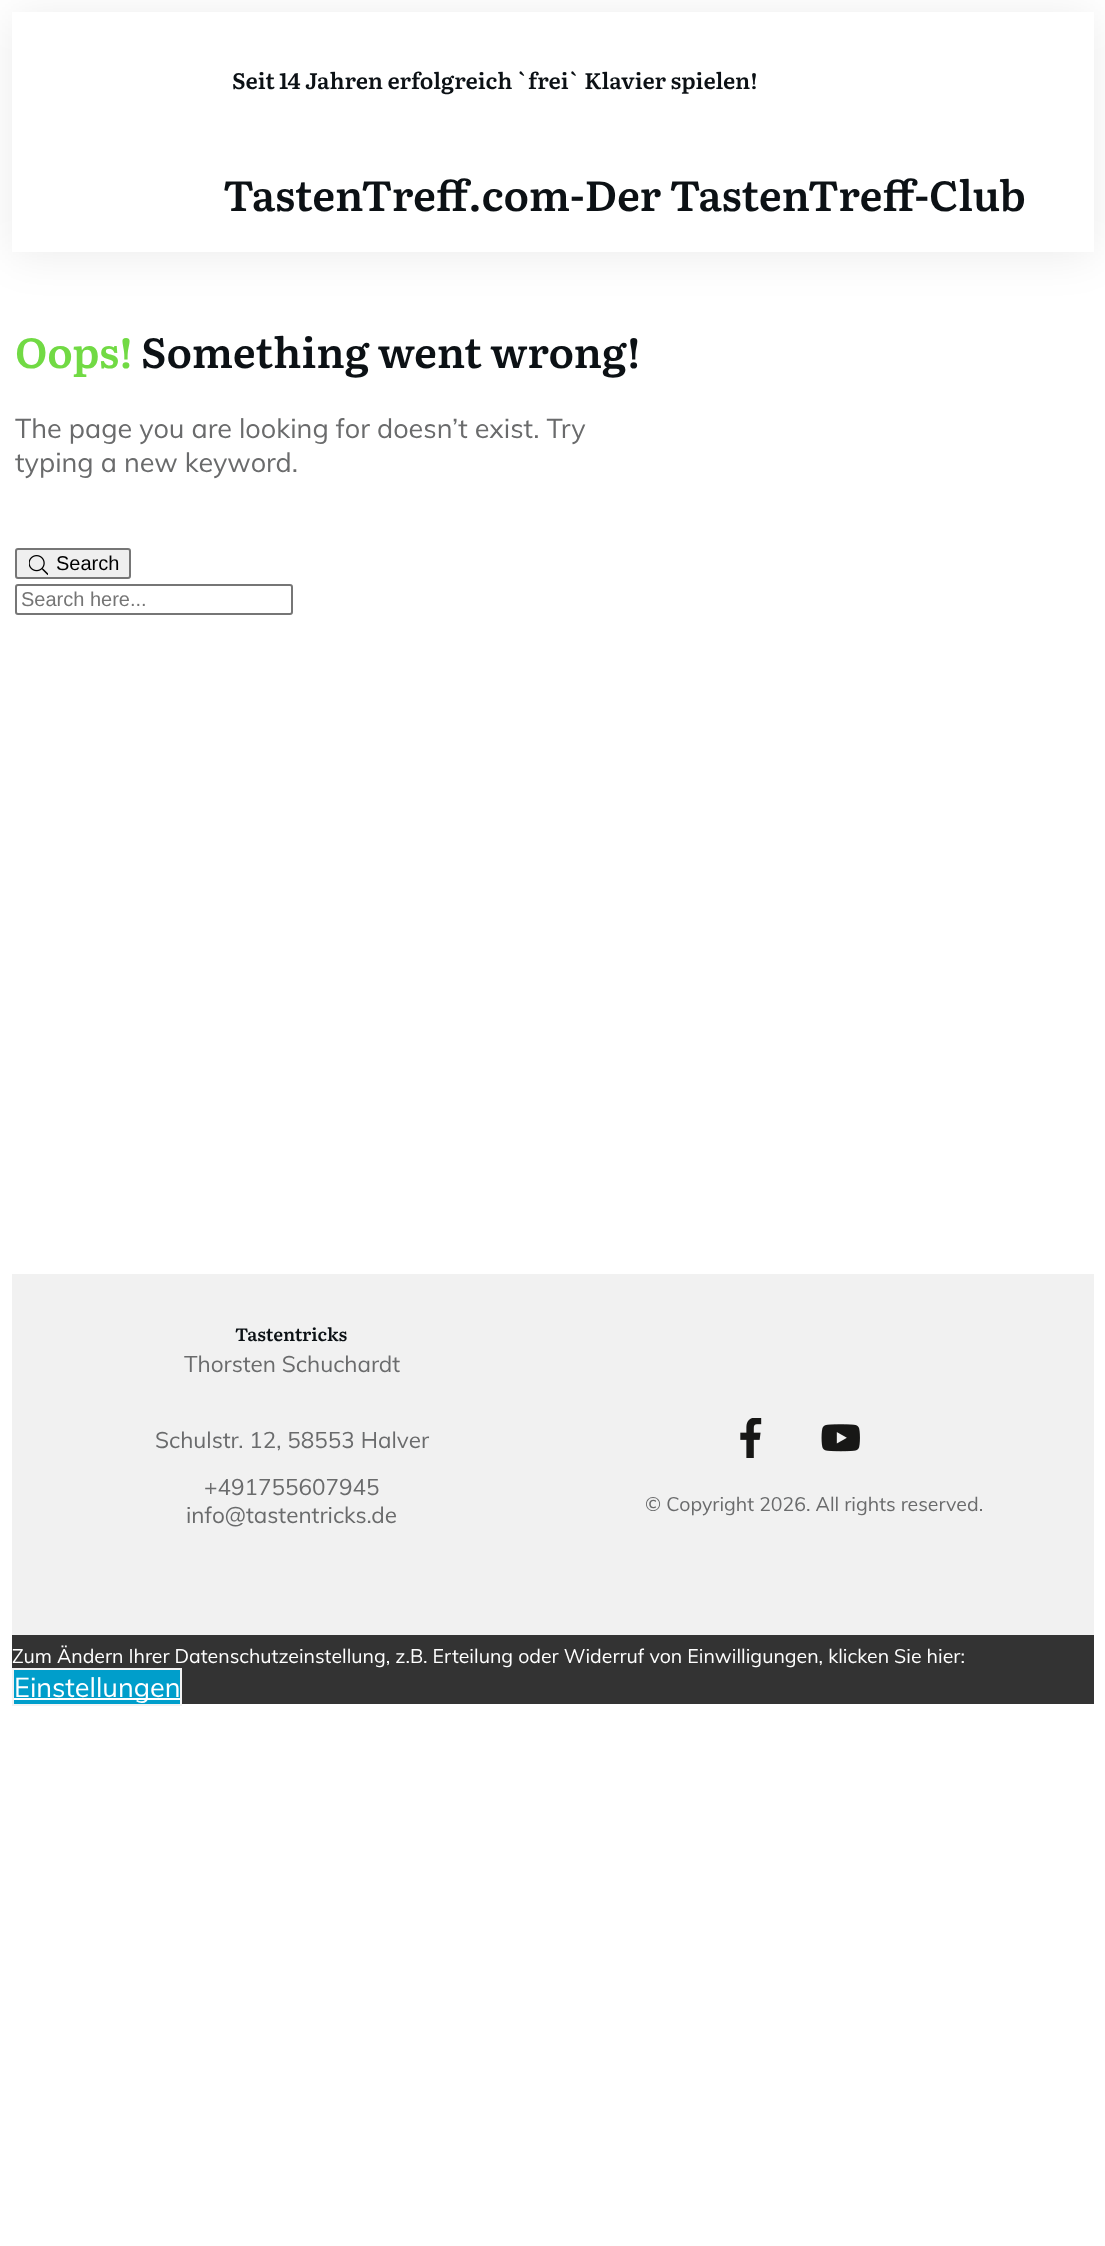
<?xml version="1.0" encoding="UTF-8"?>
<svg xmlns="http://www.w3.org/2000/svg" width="1105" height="2246">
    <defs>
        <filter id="blur1" x="-50%" y="-200%" width="200%" height="500%"><feGaussianBlur stdDeviation="22.5"/></filter>
    </defs>
    <rect width="100%" height="100%" fill="#FFFFFF"/>
    <rect x="12" y="15" width="1082" height="240" fill="#000000" fill-opacity="0.08" filter="url(#blur1)"/>
    <rect x="12" y="12" width="1082" height="240" fill="#FFFFFF"/>
    <text x="232" y="89" font-family="Literata" font-size="22.4" font-weight="600" fill="#0C1115">Seit 14 Jahren erfolgreich `frei` Klavier spielen!</text>
    <text x="223" y="211" font-family="Literata" font-size="42" font-weight="600" fill="#0C1115">TastenTreff.com-Der TastenTreff-Club</text>
    <text x="15" y="368" font-family="Literata" font-size="42" font-weight="600" fill="#71DA44">Oops!</text>
    <text x="141" y="368" font-family="Literata" font-size="42" font-weight="600" fill="#0C1115">Something went wrong!</text>
    <text font-family="Muli" font-size="27" fill="#6A6B6C">
        <tspan x="15" y="438">The page you are looking for doesn’t exist. Try</tspan>
        <tspan x="15" y="472">typing a new keyword.</tspan>
    </text>
    <rect x="16" y="549" width="114" height="29" rx="2" fill="#EFEFEF" stroke="#767676" stroke-width="2"/>
    <image x="29" y="555" width="19" height="20" href="img_01.png"/>
    <text x="56" y="570" font-family="Liberation Sans" font-size="20" fill="#000000">Search</text>
    <rect x="16" y="585" width="276" height="29" rx="2" fill="none" stroke="#767676" stroke-width="2"/>
    <text x="21" y="606" font-family="Liberation Sans" font-size="20" fill="#757575">Search here...</text>
    <rect x="12" y="1274" width="1082" height="361" fill="#F1F1F1"/>
    <text x="235" y="1341" font-family="Literata" font-size="18" font-weight="600" fill="#0C1115">Tastentricks</text>
    <text x="184" y="1372" font-family="Muli" font-size="22.5" fill="#6A6B6C">Thorsten Schuchardt</text>
    <text x="155" y="1448" font-family="Muli" font-size="22.5" fill="#6A6B6C">Schulstr. 12, 58553 Halver</text>
    <text x="204" y="1495" font-family="Muli" font-size="22.5" fill="#6A6B6C">+491755607945</text>
    <text x="186" y="1523" font-family="Muli" font-size="22.5" fill="#6A6B6C">info@tastentricks.de</text>
    <image x="740" y="1418" width="22" height="40" href="img_02.png"/>
    <image x="821" y="1424" width="39" height="28" href="img_03.png"/>
    <text x="645" y="1511" font-family="Muli" font-size="19.5" fill="#6A6B6C">© Copyright 2026. All rights reserved.</text>
    <rect x="12" y="1635" width="1082" height="69" fill="#333333"/>
    <text x="12" y="1663" font-family="Muli" font-size="19.5" fill="#FFFFFF">Zum Ändern Ihrer Datenschutzeinstellung, z.B. Erteilung oder Widerruf von Einwilligungen, klicken Sie hier:</text>
    <rect x="13" y="1669" width="168" height="36" fill="#009ECB" stroke="#F3F3F3" stroke-width="2"/>
    <rect x="14" y="1698" width="166" height="2" fill="#FFFFFF"/>
    <text x="14" y="1697" font-family="Muli" font-size="27" fill="#FFFFFF">Einstellungen</text>
</svg>
